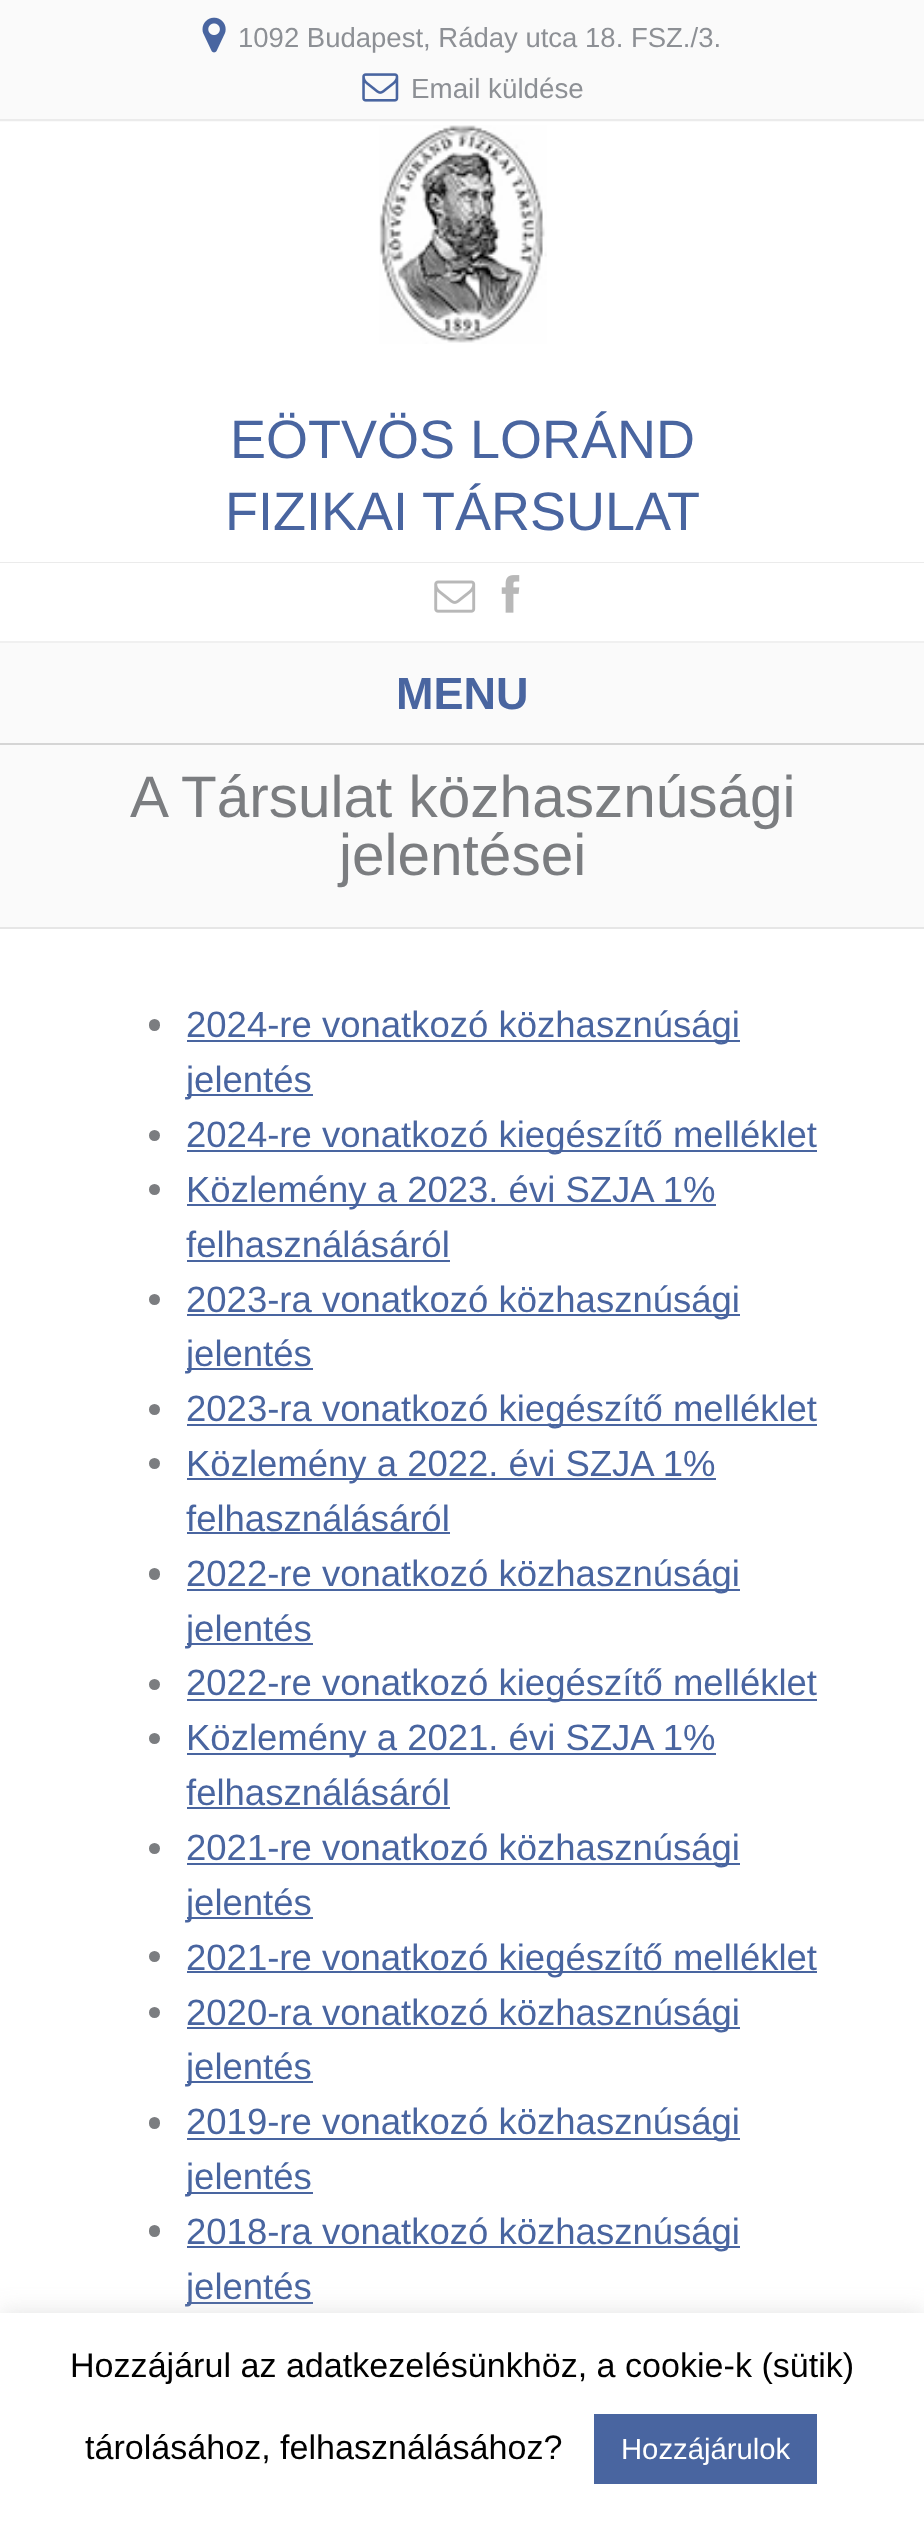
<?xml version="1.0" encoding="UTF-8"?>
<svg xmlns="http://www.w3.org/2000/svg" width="924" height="2532">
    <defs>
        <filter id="blur1" x="-50%" y="-200%" width="200%" height="500%"><feGaussianBlur stdDeviation="11"/></filter>
    </defs>
    <rect width="100%" height="100%" fill="#FFFFFF"/>
    <rect x="0" y="0" width="924" height="122" fill="#FAFAFA"/>
    <rect x="0" y="119" width="924" height="2" fill="#EBEBEB"/>
    <image x="202" y="17" width="24" height="36" href="img_01.png"/>
    <text x="238" y="47" font-family="Liberation Sans" font-size="27.5" fill="#8D9095">1092 Budapest, Ráday utca 18. FSZ./3.</text>
    <image x="362" y="73" width="37" height="29" href="img_02.png"/>
    <text x="411" y="98" font-family="Liberation Sans" font-size="27.75" fill="#8D9095">Email küldése</text>
    <path d="M 0 562 V 565 H 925 V 126 V 562 Z" fill="#EBEBEB"/>
    <image x="379" y="125" width="168" height="219" href="img_03.png"/>
    <text x="230" y="458" font-family="Liberation Sans" font-size="54" fill="#4965A0">EÖTVÖS LORÁND</text>
    <text x="225" y="530" font-family="Liberation Sans" font-size="54" fill="#4965A0">FIZIKAI TÁRSULAT</text>
    <rect x="0" y="563" width="924" height="2" fill="#FFFFFF"/>
    <image x="434" y="580" width="42" height="33" href="img_04.png"/>
    <image x="501" y="575" width="19" height="38" href="img_05.png"/>
    <rect x="0" y="643" width="924" height="100" fill="#FAFAFA"/>
    <rect x="0" y="743" width="924" height="2" fill="#D5D5D5"/>
    <rect x="0" y="641" width="924" height="2" fill="#F0F0F0"/>
    <text x="396" y="709" font-family="Liberation Sans" font-size="45" font-weight="700" fill="#4965A0">MENU</text>
    <rect x="0" y="745" width="924" height="182" fill="#FAFAFA"/>
    <rect x="0" y="927" width="924" height="2" fill="#E6E6E6"/>
    <text x="130" y="817" font-family="Liberation Sans" font-size="58.5" fill="#7B7D80">A Társulat közhasznúsági</text>
    <text x="339" y="875" font-family="Liberation Sans" font-size="58.5" fill="#7B7D80">jelentései</text>
    <rect x="149" y="1019" width="11" height="12" rx="5.5" fill="#7B7D80"/>
    <rect x="187" y="1040" width="553" height="2" fill="#4965A0"/>
    <text x="186" y="1037" font-family="Liberation Sans" font-size="36.5" fill="#4965A0">2024-re vonatkozó közhasznúsági</text>
    <rect x="187" y="1094" width="126" height="2" fill="#4965A0"/>
    <text x="186" y="1092" font-family="Liberation Sans" font-size="36.5" fill="#4965A0">jelentés</text>
    <circle cx="154.5" cy="1135.5" r="5.5" fill="#7B7D80"/>
    <rect x="187" y="1150" width="630" height="2" fill="#4965A0"/>
    <text x="186" y="1147" font-family="Liberation Sans" font-size="36.5" fill="#4965A0">2024-re vonatkozó kiegészítő melléklet</text>
    <circle cx="154.5" cy="1189.5" r="5.5" fill="#7B7D80"/>
    <rect x="187" y="1204" width="529" height="2" fill="#4965A0"/>
    <text font-family="Liberation Sans" font-size="36.5" fill="#4965A0">
        <tspan x="186" y="1202">Közlemény a 2023. évi SZJA 1%</tspan>
        <tspan x="186" y="1257">felhasználásáról</tspan>
    </text>
    <rect x="187" y="1260" width="263" height="2" fill="#4965A0"/>
    <circle cx="154.5" cy="1299.5" r="5.5" fill="#7B7D80"/>
    <rect x="187" y="1314" width="553" height="2" fill="#4965A0"/>
    <text x="186" y="1312" font-family="Liberation Sans" font-size="36.5" fill="#4965A0">2023-ra vonatkozó közhasznúsági</text>
    <rect x="187" y="1368" width="126" height="2" fill="#4965A0"/>
    <text x="186" y="1366" font-family="Liberation Sans" font-size="36.5" fill="#4965A0">jelentés</text>
    <circle cx="154.5" cy="1409.5" r="5.5" fill="#7B7D80"/>
    <rect x="187" y="1424" width="630" height="2" fill="#4965A0"/>
    <text x="186" y="1421" font-family="Liberation Sans" font-size="36.5" fill="#4965A0">2023-ra vonatkozó kiegészítő melléklet</text>
    <circle cx="154.5" cy="1463.5" r="5.5" fill="#7B7D80"/>
    <rect x="187" y="1478" width="529" height="2" fill="#4965A0"/>
    <text font-family="Liberation Sans" font-size="36.5" fill="#4965A0">
        <tspan x="186" y="1476">Közlemény a 2022. évi SZJA 1%</tspan>
        <tspan x="186" y="1531">felhasználásáról</tspan>
    </text>
    <rect x="187" y="1532" width="263" height="2" fill="#4965A0"/>
    <rect x="149" y="1568" width="11" height="12" rx="5.5" fill="#7B7D80"/>
    <rect x="187" y="1589" width="553" height="2" fill="#4965A0"/>
    <text x="186" y="1586" font-family="Liberation Sans" font-size="36.5" fill="#4965A0">2022-re vonatkozó közhasznúsági</text>
    <rect x="187" y="1643" width="126" height="2" fill="#4965A0"/>
    <text x="186" y="1641" font-family="Liberation Sans" font-size="36.5" fill="#4965A0">jelentés</text>
    <circle cx="154.5" cy="1684.5" r="5.5" fill="#7B7D80"/>
    <rect x="187" y="1699" width="630" height="2" fill="#4965A0"/>
    <text x="186" y="1695" font-family="Liberation Sans" font-size="36.5" fill="#4965A0">2022-re vonatkozó kiegészítő melléklet</text>
    <circle cx="154.5" cy="1738.5" r="5.5" fill="#7B7D80"/>
    <rect x="187" y="1753" width="529" height="2" fill="#4965A0"/>
    <text font-family="Liberation Sans" font-size="36.5" fill="#4965A0">
        <tspan x="186" y="1750">Közlemény a 2021. évi SZJA 1%</tspan>
        <tspan x="186" y="1805">felhasználásáról</tspan>
    </text>
    <rect x="187" y="1807" width="263" height="2" fill="#4965A0"/>
    <circle cx="154.5" cy="1848.5" r="5.5" fill="#7B7D80"/>
    <rect x="187" y="1863" width="553" height="2" fill="#4965A0"/>
    <text x="186" y="1860" font-family="Liberation Sans" font-size="36.5" fill="#4965A0">2021-re vonatkozó közhasznúsági</text>
    <rect x="187" y="1917" width="126" height="2" fill="#4965A0"/>
    <text x="186" y="1915" font-family="Liberation Sans" font-size="36.5" fill="#4965A0">jelentés</text>
    <circle cx="154.5" cy="1956.5" r="5.5" fill="#7B7D80"/>
    <rect x="187" y="1971" width="630" height="2" fill="#4965A0"/>
    <text x="186" y="1970" font-family="Liberation Sans" font-size="36.5" fill="#4965A0">2021-re vonatkozó kiegészítő melléklet</text>
    <circle cx="154.5" cy="2012.5" r="5.5" fill="#7B7D80"/>
    <rect x="187" y="2027" width="553" height="2" fill="#4965A0"/>
    <text x="186" y="2025" font-family="Liberation Sans" font-size="36.5" fill="#4965A0">2020-ra vonatkozó közhasznúsági</text>
    <rect x="187" y="2081" width="126" height="2" fill="#4965A0"/>
    <text x="186" y="2079" font-family="Liberation Sans" font-size="36.5" fill="#4965A0">jelentés</text>
    <rect x="149" y="2117" width="11" height="12" rx="5.5" fill="#7B7D80"/>
    <rect x="187" y="2138" width="553" height="2" fill="#4965A0"/>
    <text x="186" y="2134" font-family="Liberation Sans" font-size="36.5" fill="#4965A0">2019-re vonatkozó közhasznúsági</text>
    <rect x="187" y="2192" width="126" height="2" fill="#4965A0"/>
    <text x="186" y="2189" font-family="Liberation Sans" font-size="36.5" fill="#4965A0">jelentés</text>
    <rect x="149" y="2225" width="11" height="12" rx="5.5" fill="#7B7D80"/>
    <rect x="187" y="2246" width="553" height="2" fill="#4965A0"/>
    <text x="186" y="2244" font-family="Liberation Sans" font-size="36.5" fill="#4965A0">2018-ra vonatkozó közhasznúsági</text>
    <rect x="187" y="2302" width="126" height="2" fill="#4965A0"/>
    <text x="186" y="2299" font-family="Liberation Sans" font-size="36.5" fill="#4965A0">jelentés</text>
    <rect x="0" y="2311" width="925" height="220" fill="#ACABAB" fill-opacity="0.3" filter="url(#blur1)"/>
    <rect x="0" y="2313" width="924" height="219" fill="#FFFFFF"/>
    <text x="70" y="2377" font-family="Liberation Sans" font-size="34.1" fill="#000000">Hozzájárul az adatkezelésünkhöz, a cookie-k (sütik)</text>
    <text x="85" y="2459" font-family="Liberation Sans" font-size="34.1" fill="#000000">tárolásához, felhasználásához?</text>
    <rect x="594" y="2414" width="223" height="70" fill="#4965A0"/>
    <text x="621" y="2459" font-family="Liberation Sans" font-size="29.25" fill="#FFFFFF">Hozzájárulok</text>
</svg>
